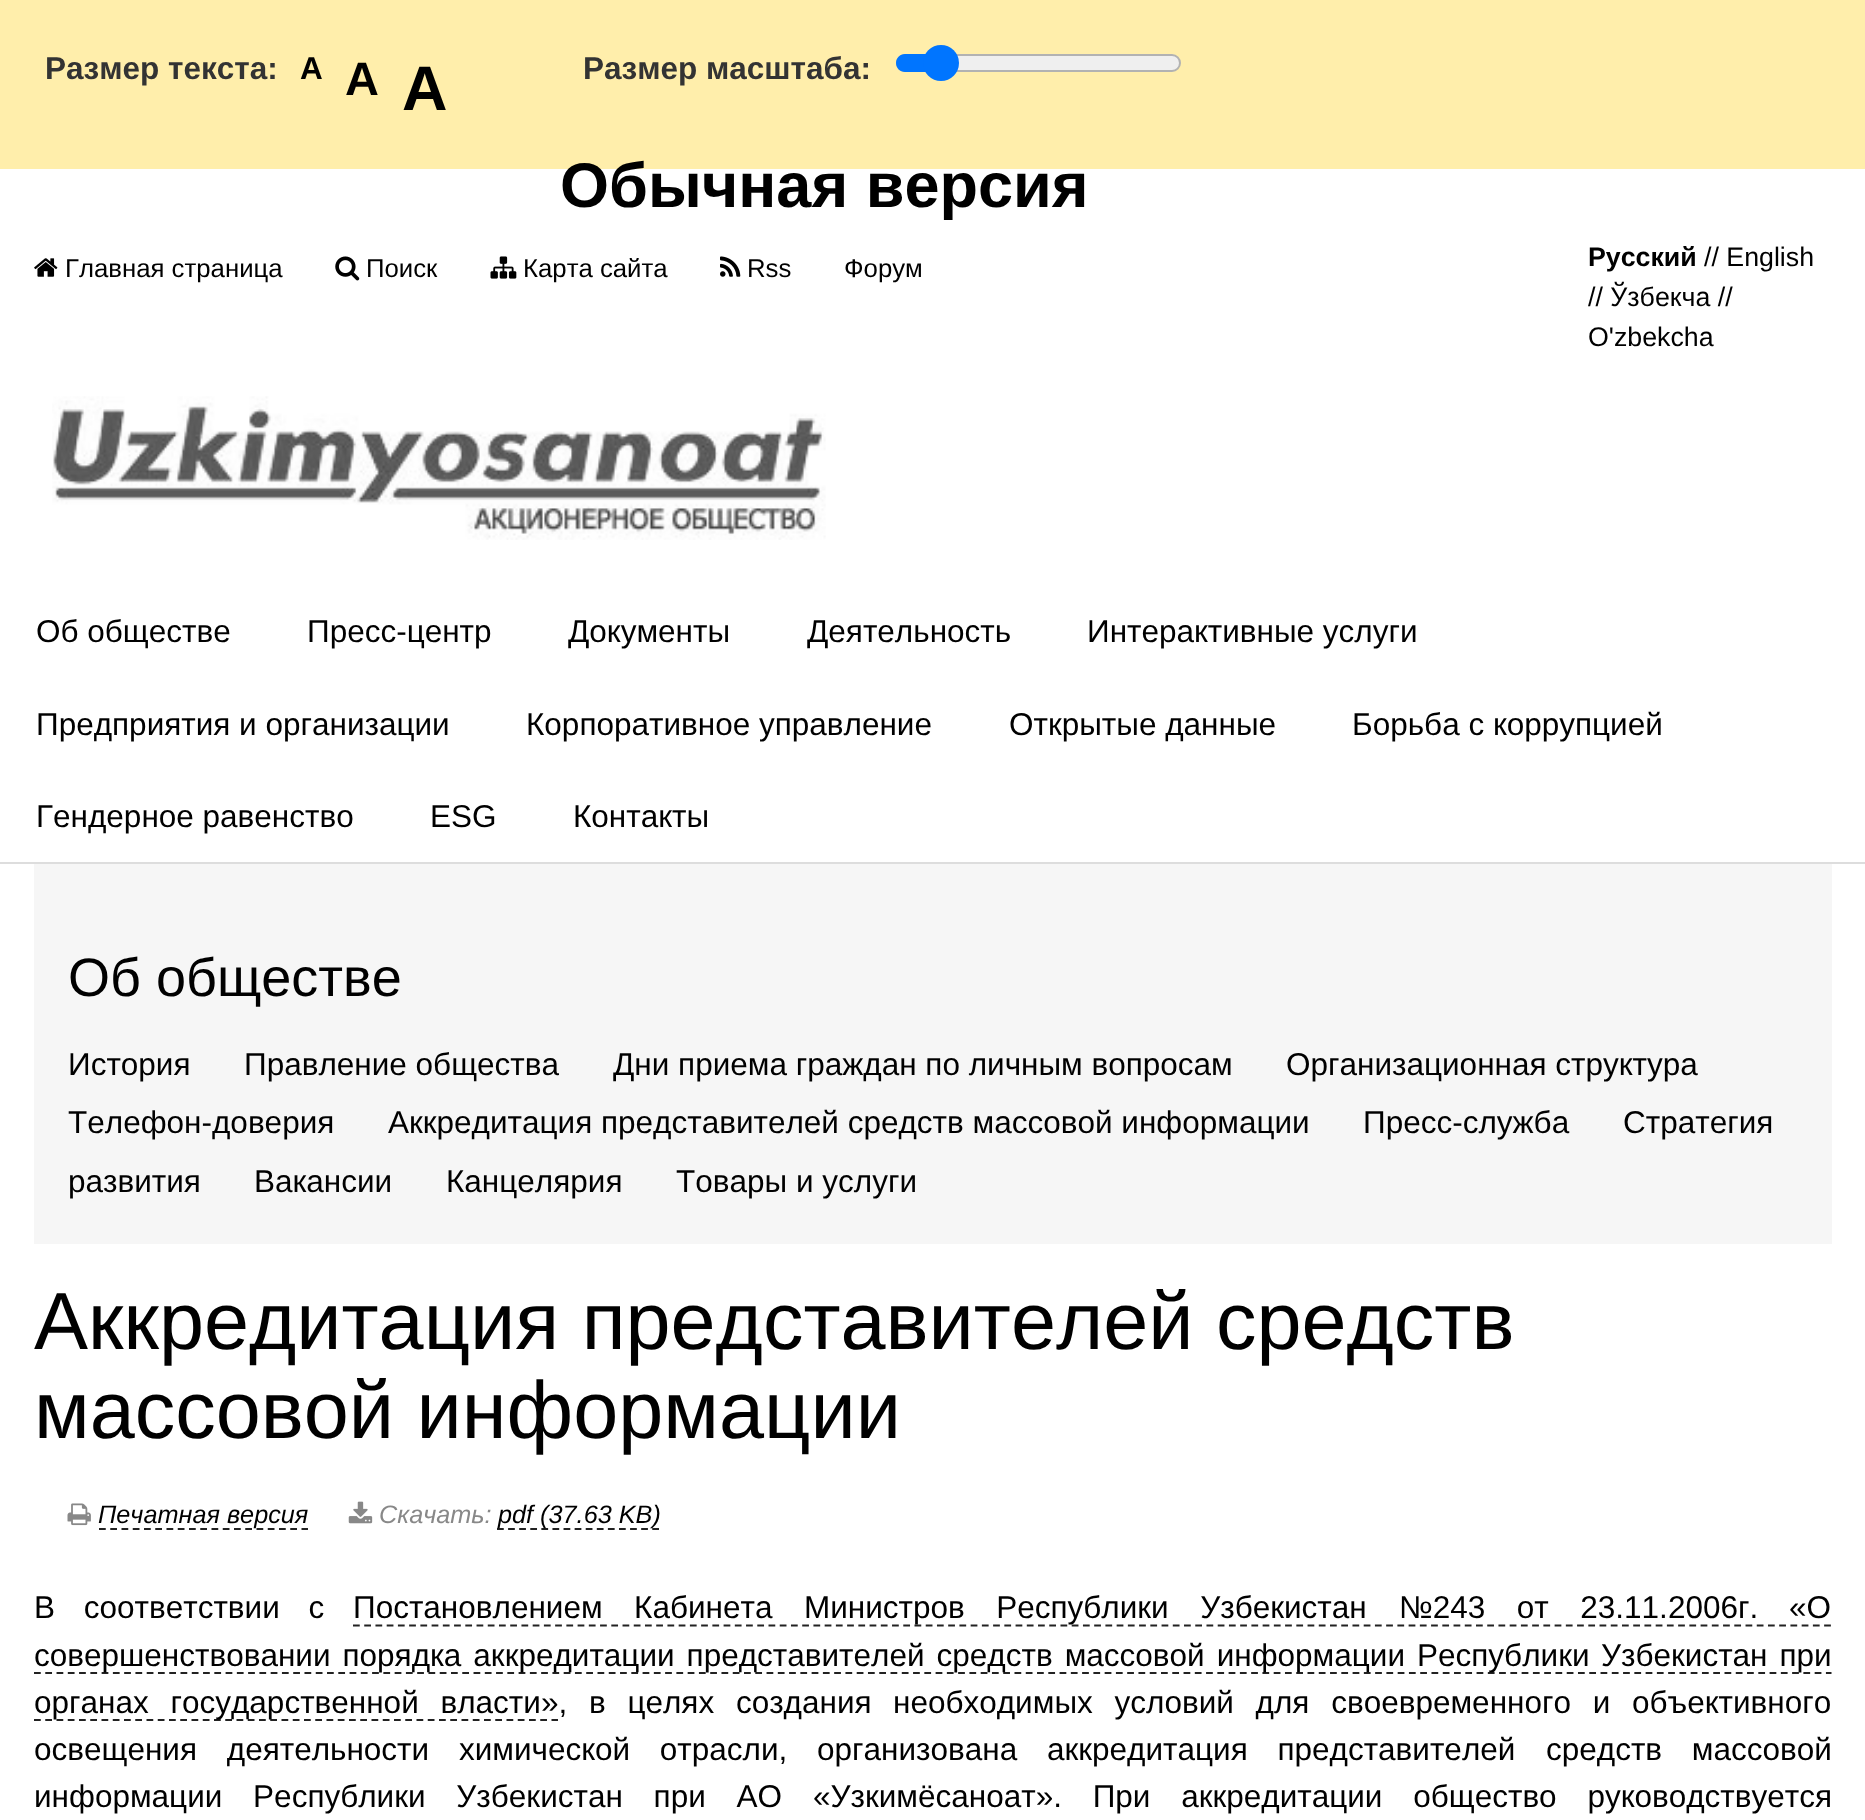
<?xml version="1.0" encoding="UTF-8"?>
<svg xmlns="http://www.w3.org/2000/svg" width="1865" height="1820">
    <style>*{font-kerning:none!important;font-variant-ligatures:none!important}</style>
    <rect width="100%" height="100%" fill="#FFFFFF"/>
    <rect x="0" y="0" width="1865" height="169" fill="#FFEEAB"/>
    <text x="45" y="79" font-family="Liberation Sans" font-size="31.5" font-weight="700" fill="#333333">Размер текста:</text>
    <text x="300" y="79" font-family="Liberation Sans" font-size="31.5" font-weight="700" fill="#000000">A</text>
    <text x="345" y="95" font-family="Liberation Sans" font-size="47" font-weight="700" fill="#000000">A</text>
    <text x="402" y="110" font-family="Liberation Sans" font-size="63" font-weight="700" fill="#000000">A</text>
    <text x="583" y="79" font-family="Liberation Sans" font-size="31.5" font-weight="700" fill="#333333">Размер масштаба:</text>
    <rect x="897" y="55" width="283" height="16" rx="8" fill="#EFEFEF" stroke="#B2B2B2" stroke-width="2"/>
    <path d="M 905 54 H 941 V 72 H 905 C 900 72 896 68 896 63 C 896 58 900 54 905 54 Z" fill="#0075FF"/>
    <circle cx="941" cy="63" r="18" fill="#0075FF"/>
    <text x="560" y="207" font-family="Liberation Sans" font-size="63" font-weight="700" fill="#000000">Обычная версия</text>
    <image x="34" y="258" width="24" height="19" href="img_01.png"/>
    <text x="65" y="277" font-family="Liberation Sans" font-size="25.75" fill="#000000">Главная страница</text>
    <image x="335" y="256" width="25" height="25" href="img_02.png"/>
    <text x="366" y="277" font-family="Liberation Sans" font-size="25.75" fill="#000000">Поиск</text>
    <image x="490" y="256" width="27" height="23" href="img_03.png"/>
    <text x="523" y="277" font-family="Liberation Sans" font-size="25.75" fill="#000000">Карта сайта</text>
    <image x="720" y="256" width="21" height="21" href="img_04.png"/>
    <text x="747" y="277" font-family="Liberation Sans" font-size="25.75" fill="#000000">Rss</text>
    <text x="844" y="277" font-family="Liberation Sans" font-size="25.75" fill="#000000">Форум</text>
    <text x="1588" y="266" font-family="Liberation Sans" font-size="26.75" font-weight="700" fill="#000000">Русский</text>
    <text x="1704" y="266" font-family="Liberation Sans" font-size="26.75" fill="#000000">// English</text>
    <text font-family="Liberation Sans" font-size="26.75" fill="#000000">
        <tspan x="1588" y="306">// Ўзбекча //</tspan>
        <tspan x="1588" y="346">O'zbekcha</tspan>
    </text>
    <image x="52" y="396" width="774" height="144" href="img_05.png"/>
    <rect x="0" y="862" width="1865" height="2" fill="#DDDDDD"/>
    <text x="36" y="642" font-family="Liberation Sans" font-size="31.5" fill="#000000">Об обществе</text>
    <text x="307" y="642" font-family="Liberation Sans" font-size="31.5" fill="#000000">Пресс-центр</text>
    <text x="568" y="642" font-family="Liberation Sans" font-size="31.5" fill="#000000">Документы</text>
    <text x="807" y="642" font-family="Liberation Sans" font-size="31.5" fill="#000000">Деятельность</text>
    <text x="1087" y="642" font-family="Liberation Sans" font-size="31.5" fill="#000000">Интерактивные услуги</text>
    <text x="36" y="735" font-family="Liberation Sans" font-size="31.5" fill="#000000">Предприятия и организации</text>
    <text x="526" y="735" font-family="Liberation Sans" font-size="31.5" fill="#000000">Корпоративное управление</text>
    <text x="1009" y="735" font-family="Liberation Sans" font-size="31.5" fill="#000000">Открытые данные</text>
    <text x="1352" y="735" font-family="Liberation Sans" font-size="31.5" fill="#000000">Борьба с коррупцией</text>
    <text x="36" y="827" font-family="Liberation Sans" font-size="31.5" fill="#000000">Гендерное равенство</text>
    <text x="430" y="827" font-family="Liberation Sans" font-size="31.5" fill="#000000">ESG</text>
    <text x="573" y="827" font-family="Liberation Sans" font-size="31.5" fill="#000000">Контакты</text>
    <rect x="34" y="864" width="1798" height="380" fill="#F6F6F6"/>
    <text x="68" y="996" font-family="Liberation Sans" font-size="54" fill="#000000">Об обществе</text>
    <text x="68" y="1075" font-family="Liberation Sans" font-size="31.5" fill="#000000">История</text>
    <text x="244" y="1075" font-family="Liberation Sans" font-size="31.5" fill="#000000">Правление общества</text>
    <text x="613" y="1075" font-family="Liberation Sans" font-size="31.5" fill="#000000">Дни приема граждан по личным вопросам</text>
    <text x="1286" y="1075" font-family="Liberation Sans" font-size="31.5" fill="#000000">Организационная структура</text>
    <text x="68" y="1133" font-family="Liberation Sans" font-size="31.5" fill="#000000">Телефон-доверия</text>
    <text x="388" y="1133" font-family="Liberation Sans" font-size="31.5" fill="#000000">Аккредитация представителей средств массовой информации</text>
    <text x="1363" y="1133" font-family="Liberation Sans" font-size="31.5" fill="#000000">Пресс-служба</text>
    <text x="1623" y="1133" font-family="Liberation Sans" font-size="31.5" fill="#000000">Стратегия</text>
    <text x="68" y="1192" font-family="Liberation Sans" font-size="31.5" fill="#000000">развития</text>
    <text x="254" y="1192" font-family="Liberation Sans" font-size="31.5" fill="#000000">Вакансии</text>
    <text x="446" y="1192" font-family="Liberation Sans" font-size="31.5" fill="#000000">Канцелярия</text>
    <text x="676" y="1192" font-family="Liberation Sans" font-size="31.5" fill="#000000">Товары и услуги</text>
    <text font-family="Liberation Sans" font-size="81" fill="#000000">
        <tspan x="34" y="1349">Аккредитация представителей средств</tspan>
        <tspan x="34" y="1438">массовой информации</tspan>
    </text>
    <image x="67" y="1503" width="24" height="23" href="img_06.png"/>
    <path d="M 99 1529 H 308" fill="none" stroke="#222222" stroke-width="2.2" stroke-dasharray="6.75 4.5"/>
    <text x="98" y="1523" font-family="Liberation Sans" font-size="25.25" font-style="italic" fill="#000000">Печатная версия</text>
    <image x="348" y="1501" width="25" height="23" href="img_07.png"/>
    <text x="379" y="1523" font-family="Liberation Sans" font-size="25.25" font-style="italic" fill="#888888">Скачать:</text>
    <path d="M 497 1529 H 659" fill="none" stroke="#222222" stroke-width="2.2" stroke-dasharray="6.75 4.34"/>
    <text x="498" y="1523" font-family="Liberation Sans" font-size="25.25" font-style="italic" fill="#000000">pdf (37.63 KB)</text>
    <text x="34" y="1618" word-spacing="20" font-family="Liberation Sans" font-size="31.5" fill="#000000">В соответствии с</text>
    <path d="M 353 1625.5 H 1831.5" fill="none" stroke="#222222" stroke-width="2.2" stroke-dasharray="6.75 4.48"/>
    <text x="353" y="1618" word-spacing="22.75" font-family="Liberation Sans" font-size="31.5" fill="#000000">Постановлением Кабинета Министров Республики Узбекистан</text>
    <text x="1399" y="1618" word-spacing="22.75" font-family="Liberation Sans" font-size="31.5" fill="#000000">№243 от 23.11.2006г.</text>
    <text x="1789" y="1618" word-spacing="22.75" font-family="Liberation Sans" font-size="31.5" fill="#000000">«О</text>
    <path d="M 34 1673 H 1831.5" fill="none" stroke="#222222" stroke-width="2.2" stroke-dasharray="6.75 4.52"/>
    <text x="34" y="1666" word-spacing="3.25" font-family="Liberation Sans" font-size="31.5" fill="#000000">совершенствовании порядка аккредитации представителей средств массовой информации Республики</text>
    <text x="1601" y="1666" word-spacing="3.25" font-family="Liberation Sans" font-size="31.5" fill="#000000">Узбекистан при</text>
    <path d="M 34 1720 H 558" fill="none" stroke="#222222" stroke-width="2.2" stroke-dasharray="6.75 4.5"/>
    <text x="34" y="1713" word-spacing="13" font-family="Liberation Sans" font-size="31.5" fill="#000000">органах государственной власти», в целях создания</text>
    <text x="893" y="1713" word-spacing="13" font-family="Liberation Sans" font-size="31.5" fill="#000000">необходимых условий для своевременного и объективного</text>
    <text x="34" y="1760" word-spacing="21" font-family="Liberation Sans" font-size="31.5" fill="#000000">освещения деятельности химической отрасли, организована аккредитация представителей</text>
    <text x="1546" y="1760" word-spacing="21" font-family="Liberation Sans" font-size="31.5" fill="#000000">средств массовой</text>
    <text x="34" y="1807" word-spacing="22" font-family="Liberation Sans" font-size="31.5" fill="#000000">информации Республики Узбекистан при АО</text>
    <text x="813" y="1807" word-spacing="22" font-family="Liberation Sans" font-size="31.5" fill="#000000">«Узкимёсаноат». При аккредитации общество руководствуется</text>
</svg>
